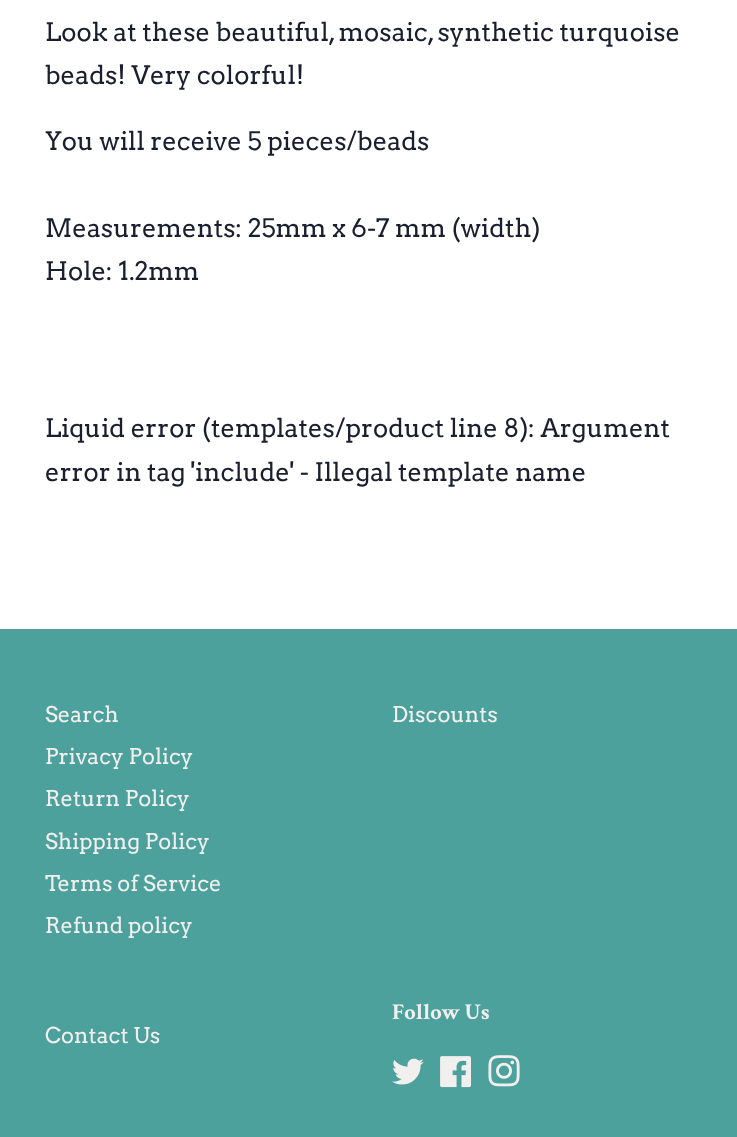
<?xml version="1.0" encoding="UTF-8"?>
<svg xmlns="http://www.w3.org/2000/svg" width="737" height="1137">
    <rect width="100%" height="100%" fill="#FFFFFF"/>
    <text font-family="Arvo" font-size="25.5" fill="#1B1E2F">
        <tspan x="45" y="41">Look at these beautiful, mosaic, synthetic turquoise</tspan>
        <tspan x="45" y="84">beads! Very colorful!</tspan>
    </text>
    <text x="45" y="150" font-family="Arvo" font-size="25.5" fill="#1B1E2F">You will receive 5 pieces/beads</text>
    <text font-family="Arvo" font-size="25.5" fill="#1B1E2F">
        <tspan x="45" y="237">Measurements: 25mm x 6-7 mm (width)</tspan>
        <tspan x="45" y="280">Hole: 1.2mm</tspan>
    </text>
    <text font-family="Arvo" font-size="25.5" fill="#1B1E2F">
        <tspan x="45" y="437">Liquid error (templates/product line 8): Argument</tspan>
        <tspan x="45" y="481">error in tag 'include' - Illegal template name</tspan>
    </text>
    <rect x="0" y="629" width="737" height="508" fill="#4DA19D"/>
    <text font-family="Arvo" font-size="21.75" fill="#F2F0EE">
        <tspan x="45" y="722">Search</tspan>
        <tspan x="45" y="764">Privacy Policy</tspan>
        <tspan x="45" y="806">Return Policy</tspan>
        <tspan x="45" y="849">Shipping Policy</tspan>
        <tspan x="45" y="891">Terms of Service</tspan>
        <tspan x="45" y="933">Refund policy</tspan>
    </text>
    <text x="392" y="722" font-family="Arvo" font-size="21.75" fill="#F2F0EE">Discounts</text>
    <text x="392" y="1019" font-family="Crimson Text" font-size="22.5" font-weight="700" fill="#F2F0EE">Follow Us</text>
    <image x="392" y="1058" width="32" height="27" href="img_01.png"/>
    <image x="440" y="1056" width="31" height="32" href="img_02.png"/>
    <image x="488" y="1055" width="32" height="32" href="img_03.png"/>
    <text x="45" y="1043" font-family="Arvo" font-size="21.75" fill="#F2F0EE">Contact Us</text>
</svg>
